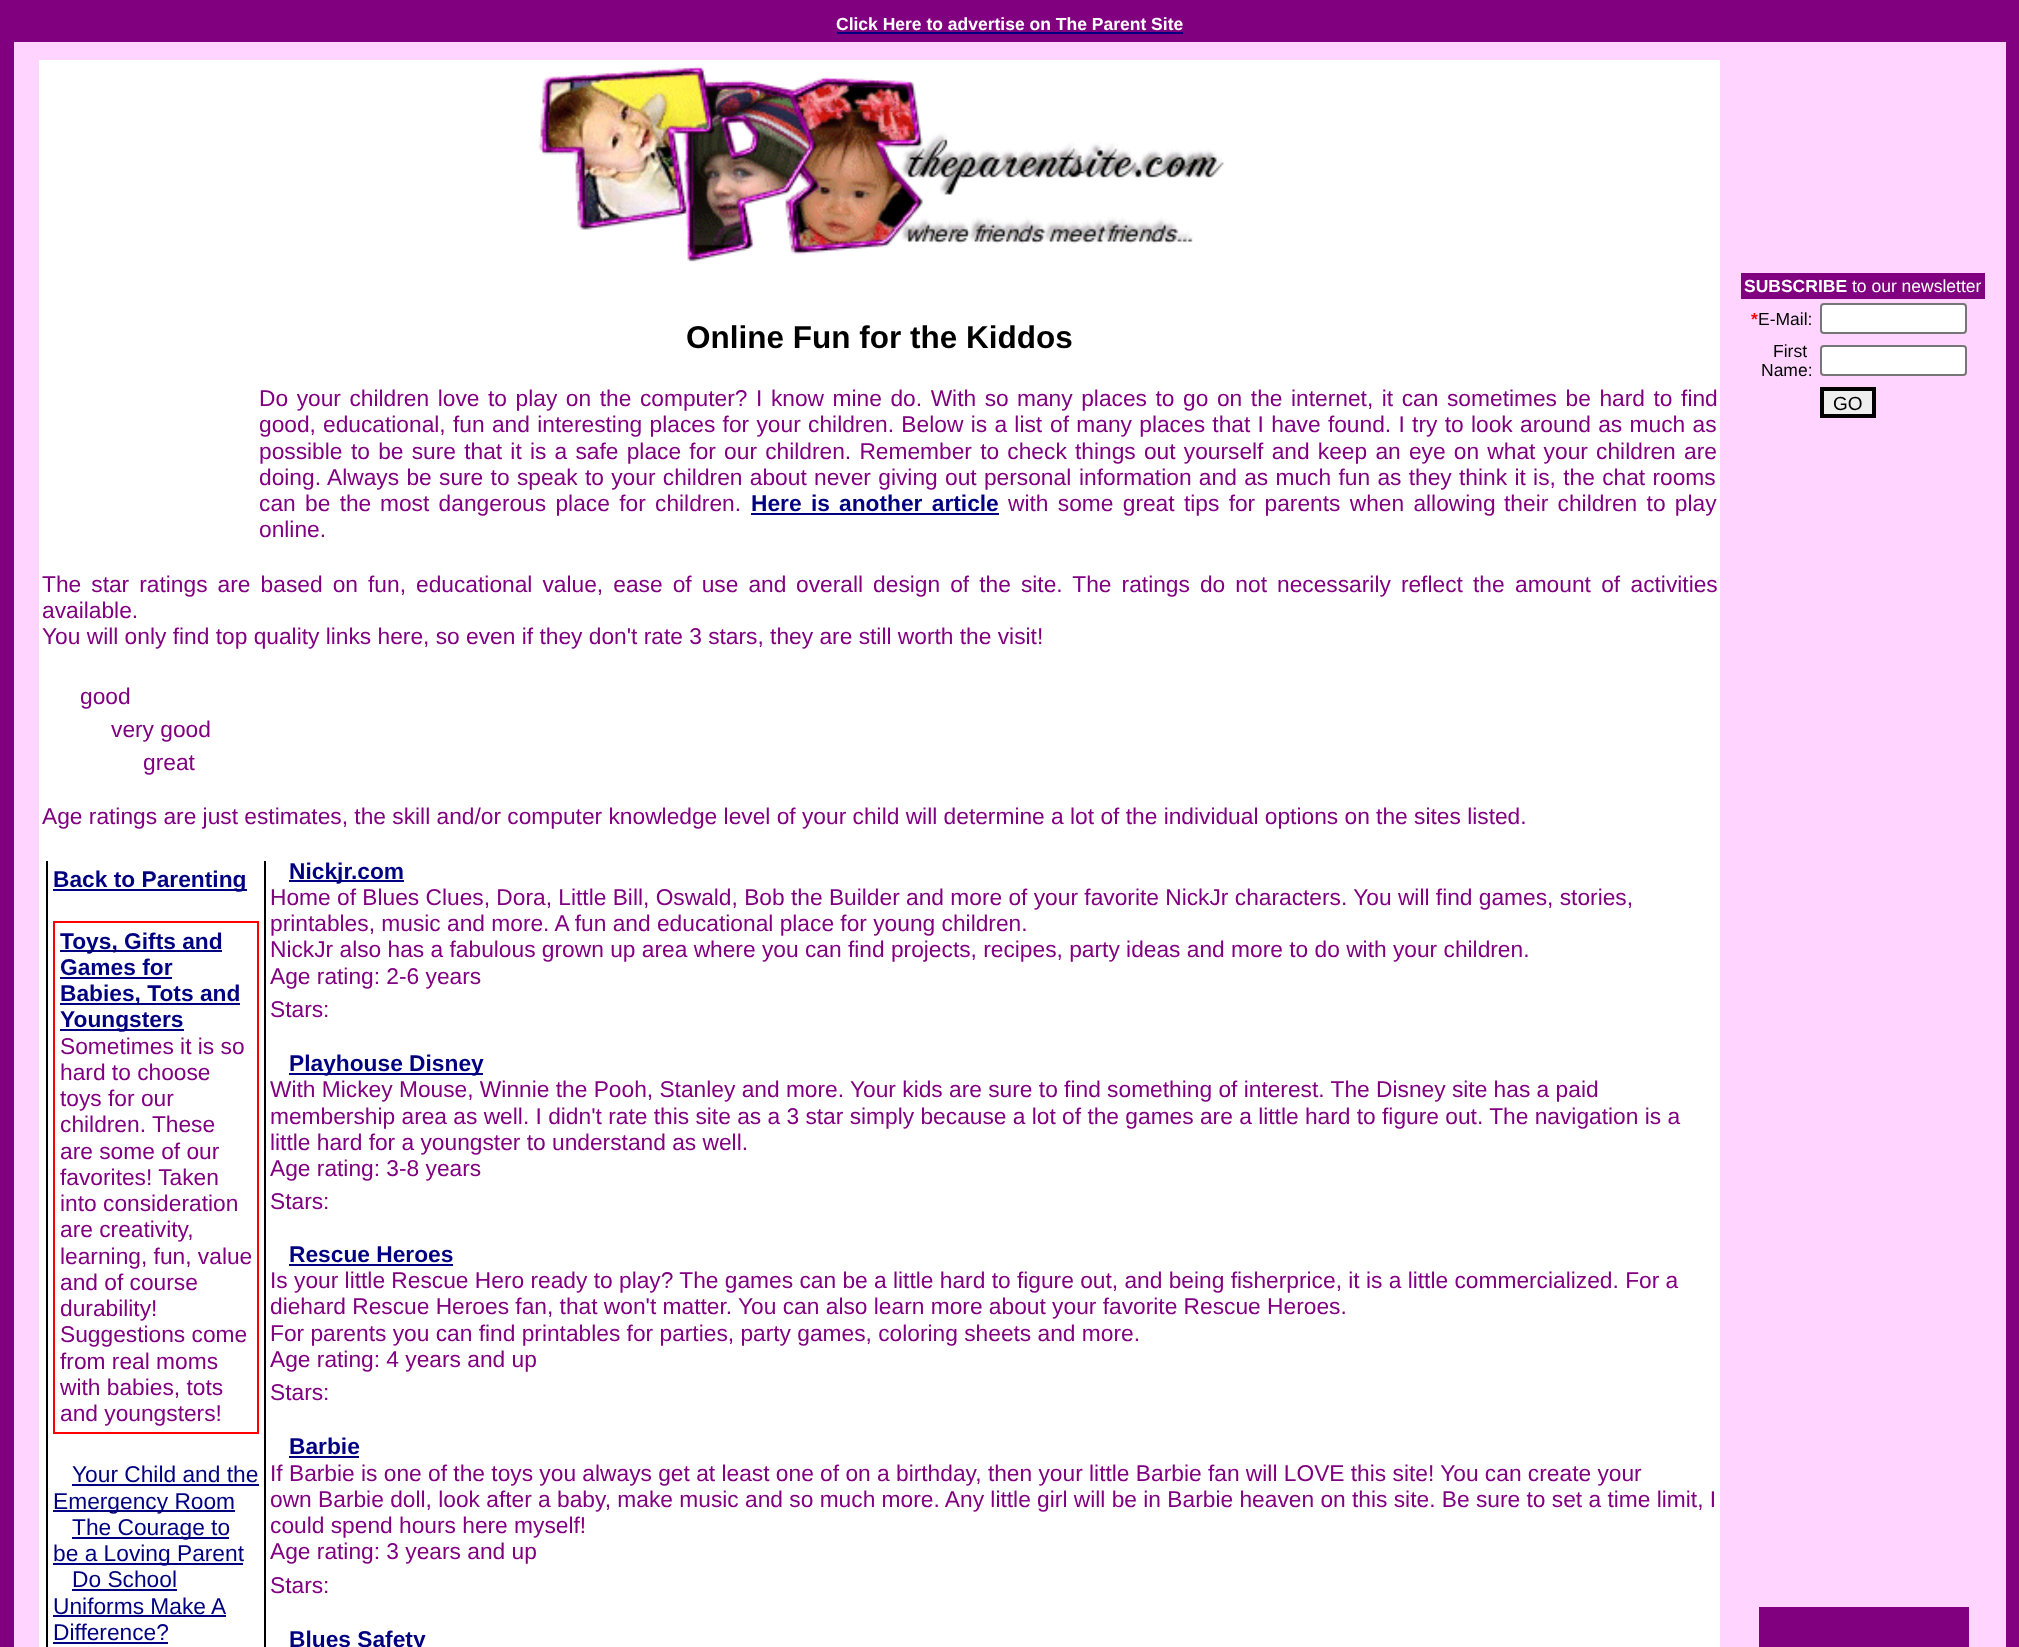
<?xml version="1.0" encoding="UTF-8"?>
<svg xmlns="http://www.w3.org/2000/svg" width="2019" height="1647">
    <rect width="100%" height="100%" fill="#800080"/>
    <text x="836" y="30" font-family="Liberation Sans" font-size="17.5" font-weight="700" fill="#FFFFFF">Click Here to advertise on The Parent Site</text>
    <rect x="837" y="32" width="346" height="2" fill="#000080"/>
    <rect x="14" y="42" width="1992" height="18" fill="#FFD5FF"/>
    <rect x="39" y="60" width="1681" height="1587" fill="#FFFFFF"/>
    <rect x="14" y="60" width="25" height="1587" fill="#FFD5FF"/>
    <image x="538" y="66" width="687" height="196" href="img_01.png"/>
    <text x="686" y="348" font-family="Liberation Sans" font-size="31.5" font-weight="700" fill="#000000">Online Fun for the Kiddos</text>
    <text x="259" y="406" word-spacing="2.25" font-family="Liberation Sans" font-size="22.75" fill="#800080">Do your children love to play on the computer? I know mine do. With so</text>
    <text x="1017" y="406" word-spacing="2.25" font-family="Liberation Sans" font-size="22.75" fill="#800080">many places to go on the internet, it can sometimes be hard to find</text>
    <text x="259" y="432" font-family="Liberation Sans" font-size="22.75" fill="#800080">good,</text>
    <text x="323" y="432" word-spacing="1" font-family="Liberation Sans" font-size="22.75" fill="#800080">educational, fun and interesting places for your children. Below is a list</text>
    <text x="1050" y="432" word-spacing="1" font-family="Liberation Sans" font-size="22.75" fill="#800080">of many places that I have found. I try to look around as much as</text>
    <text x="259" y="459" font-family="Liberation Sans" font-size="22.75" fill="#800080">possible</text>
    <text x="351" y="459" word-spacing="1.9" font-family="Liberation Sans" font-size="22.75" fill="#800080">to be sure that it is a safe place for our children. Remember to check</text>
    <text x="1075" y="459" word-spacing="1.9" font-family="Liberation Sans" font-size="22.75" fill="#800080">things out yourself and keep an eye on what your children are</text>
    <text x="259" y="485" font-family="Liberation Sans" font-size="22.75" fill="#800080">doing.</text>
    <text x="327" y="485" word-spacing="1" font-family="Liberation Sans" font-size="22.75" fill="#800080">Always be sure to speak to your children about never giving out personal</text>
    <text x="1079" y="485" word-spacing="1" font-family="Liberation Sans" font-size="22.75" fill="#800080">information and as much fun as they think it is, the chat rooms</text>
    <text x="259" y="511" word-spacing="3" font-family="Liberation Sans" font-size="22.75" fill="#800080">can be the</text>
    <text x="380" y="511" word-spacing="3" font-family="Liberation Sans" font-size="22.75" fill="#800080">most dangerous place for children.</text>
    <text x="751" y="511" word-spacing="3" font-family="Liberation Sans" font-size="22.75" font-weight="700" fill="#000080">Here is</text>
    <rect x="751" y="513" width="248" height="2" fill="#000080"/>
    <text x="839" y="511" word-spacing="3" font-family="Liberation Sans" font-size="22.75" font-weight="700" fill="#000080">another article</text>
    <text x="1008" y="511" word-spacing="3" font-family="Liberation Sans" font-size="22.75" fill="#800080">with some great tips for parents when allowing</text>
    <text x="1504" y="511" word-spacing="3" font-family="Liberation Sans" font-size="22.75" fill="#800080">their children to play</text>
    <text x="259" y="537" font-family="Liberation Sans" font-size="22.75" fill="#800080">online.</text>
    <text x="42" y="592" word-spacing="3.75" font-family="Liberation Sans" font-size="22.75" fill="#800080">The star ratings are based on fun, educational value, ease of use and</text>
    <text x="796" y="592" word-spacing="3.75" font-family="Liberation Sans" font-size="22.75" fill="#800080">overall design of the site. The ratings do not necessarily reflect the</text>
    <text x="1515" y="592" word-spacing="4" font-family="Liberation Sans" font-size="22.75" fill="#800080">amount of activities</text>
    <text font-family="Liberation Sans" font-size="22.75" fill="#800080">
        <tspan x="42" y="618">available.</tspan>
        <tspan x="42" y="644">You will only find top quality links here, so even if they don't rate 3 stars, they are still worth the visit!</tspan>
    </text>
    <text x="80" y="704" font-family="Liberation Sans" font-size="22.75" fill="#800080">good</text>
    <text x="111" y="737" font-family="Liberation Sans" font-size="22.75" fill="#800080">very good</text>
    <text x="143" y="770" font-family="Liberation Sans" font-size="22.75" fill="#800080">great</text>
    <text x="42" y="824" font-family="Liberation Sans" font-size="22.75" fill="#800080">Age ratings are just estimates, the skill and/or computer knowledge level of your child will determine a lot of the individual options on the sites listed.</text>
    <rect x="46" y="861" width="2" height="786" fill="#000000"/>
    <rect x="53" y="889" width="194" height="2" fill="#000080"/>
    <text x="53" y="887" font-family="Liberation Sans" font-size="22.75" font-weight="700" fill="#000080">Back to Parenting</text>
    <rect x="53" y="921" width="206" height="2" fill="#FF0000"/>
    <rect x="257" y="921" width="2" height="512" fill="#FF0000"/>
    <rect x="53" y="1432" width="206" height="2" fill="#FF0000"/>
    <rect x="53" y="921" width="2" height="512" fill="#FF0000"/>
    <rect x="60" y="950" width="162" height="2" fill="#000080"/>
    <text font-family="Liberation Sans" font-size="22.75" font-weight="700" fill="#000080">
        <tspan x="60" y="949">Toys, Gifts and</tspan>
        <tspan x="60" y="975">Games for</tspan>
    </text>
    <rect x="60" y="977" width="112" height="2" fill="#000080"/>
    <rect x="60" y="1003" width="180" height="2" fill="#000080"/>
    <text x="60" y="1001" font-family="Liberation Sans" font-size="22.75" font-weight="700" fill="#000080">Babies, Tots and</text>
    <rect x="60" y="1029" width="124" height="2" fill="#000080"/>
    <text x="60" y="1027" font-family="Liberation Sans" font-size="22.75" font-weight="700" fill="#000080">Youngsters</text>
    <text font-family="Liberation Sans" font-size="22.75" fill="#800080">
        <tspan x="60" y="1054">Sometimes it is so</tspan>
        <tspan x="60" y="1080">hard to choose</tspan>
        <tspan x="60" y="1106">toys for our</tspan>
        <tspan x="60" y="1132">children. These</tspan>
        <tspan x="60" y="1159">are some of our</tspan>
        <tspan x="60" y="1185">favorites! Taken</tspan>
        <tspan x="60" y="1211">into consideration</tspan>
        <tspan x="60" y="1237">are creativity,</tspan>
        <tspan x="60" y="1264">learning, fun, value</tspan>
        <tspan x="60" y="1290">and of course</tspan>
        <tspan x="60" y="1316">durability!</tspan>
        <tspan x="60" y="1342">Suggestions come</tspan>
        <tspan x="60" y="1369">from real moms</tspan>
        <tspan x="60" y="1395">with babies, tots</tspan>
        <tspan x="60" y="1421">and youngsters!</tspan>
    </text>
    <text x="72" y="1482" font-family="Liberation Sans" font-size="22.75" fill="#000080">Your Child and the</text>
    <rect x="72" y="1484" width="187" height="2" fill="#000080"/>
    <rect x="53" y="1510" width="182" height="2" fill="#000080"/>
    <text x="53" y="1509" font-family="Liberation Sans" font-size="22.75" fill="#000080">Emergency Room</text>
    <rect x="72" y="1537" width="157" height="2" fill="#000080"/>
    <text x="72" y="1535" font-family="Liberation Sans" font-size="22.75" fill="#000080">The Courage to</text>
    <rect x="53" y="1563" width="190" height="2" fill="#000080"/>
    <text x="53" y="1561" font-family="Liberation Sans" font-size="22.75" fill="#000080">be a Loving Parent</text>
    <text x="72" y="1587" font-family="Liberation Sans" font-size="22.75" fill="#000080">Do School</text>
    <rect x="72" y="1589" width="105" height="2" fill="#000080"/>
    <text x="53" y="1614" font-family="Liberation Sans" font-size="22.75" fill="#000080">Uniforms Make A</text>
    <rect x="53" y="1615" width="173" height="2" fill="#000080"/>
    <text x="53" y="1640" font-family="Liberation Sans" font-size="22.75" fill="#000080">Difference?</text>
    <rect x="53" y="1642" width="115" height="2" fill="#000080"/>
    <rect x="264" y="861" width="2" height="786" fill="#000000"/>
    <rect x="289" y="880" width="115" height="2" fill="#000080"/>
    <text x="289" y="879" font-family="Liberation Sans" font-size="22.75" font-weight="700" fill="#000080">Nickjr.com</text>
    <text font-family="Liberation Sans" font-size="22.75" fill="#800080">
        <tspan x="270" y="905">Home of Blues Clues, Dora, Little Bill, Oswald, Bob the Builder and more of your favorite NickJr characters. You will find games, stories,</tspan>
        <tspan x="270" y="931">printables, music and more. A fun and educational place for young children.</tspan>
        <tspan x="270" y="957">NickJr also has a fabulous grown up area where you can find projects, recipes, party ideas and more to do with your children.</tspan>
        <tspan x="270" y="984">Age rating: 2-6 years</tspan>
        <tspan x="270" y="1017">Stars:</tspan>
    </text>
    <rect x="289" y="1073" width="194" height="2" fill="#000080"/>
    <text x="289" y="1071" font-family="Liberation Sans" font-size="22.75" font-weight="700" fill="#000080">Playhouse Disney</text>
    <text font-family="Liberation Sans" font-size="22.75" fill="#800080">
        <tspan x="270" y="1097">With Mickey Mouse, Winnie the Pooh, Stanley and more. Your kids are sure to find something of interest. The Disney site has a paid</tspan>
        <tspan x="270" y="1124">membership area as well. I didn't rate this site as a 3 star simply because a lot of the games are a little hard to figure out. The navigation is a</tspan>
        <tspan x="270" y="1150">little hard for a youngster to understand as well.</tspan>
        <tspan x="270" y="1176">Age rating: 3-8 years</tspan>
        <tspan x="270" y="1209">Stars:</tspan>
    </text>
    <text x="289" y="1262" font-family="Liberation Sans" font-size="22.75" font-weight="700" fill="#000080">Rescue Heroes</text>
    <rect x="289" y="1264" width="164" height="2" fill="#000080"/>
    <text font-family="Liberation Sans" font-size="22.75" fill="#800080">
        <tspan x="270" y="1288">Is your little Rescue Hero ready to play? The games can be a little hard to figure out, and being fisherprice, it is a little commercialized. For a</tspan>
        <tspan x="270" y="1314">diehard Rescue Heroes fan, that won't matter. You can also learn more about your favorite Rescue Heroes.</tspan>
        <tspan x="270" y="1341">For parents you can find printables for parties, party games, coloring sheets and more.</tspan>
        <tspan x="270" y="1367">Age rating: 4 years and up</tspan>
        <tspan x="270" y="1400">Stars:</tspan>
    </text>
    <text x="289" y="1454" font-family="Liberation Sans" font-size="22.75" font-weight="700" fill="#000080">Barbie</text>
    <rect x="289" y="1456" width="70" height="2" fill="#000080"/>
    <text font-family="Liberation Sans" font-size="22.75" fill="#800080">
        <tspan x="270" y="1481">If Barbie is one of the toys you always get at least one of on a birthday, then your little Barbie fan will LOVE this site! You can create your</tspan>
        <tspan x="270" y="1507">own Barbie doll, look after a baby, make music and so much more. Any little girl will be in Barbie heaven on this site. Be sure to set a time limit, I</tspan>
        <tspan x="270" y="1533">could spend hours here myself!</tspan>
        <tspan x="270" y="1559">Age rating: 3 years and up</tspan>
        <tspan x="270" y="1593">Stars:</tspan>
    </text>
    <text x="289" y="1647" font-family="Liberation Sans" font-size="22.75" font-weight="700" fill="#000080">Blues Safety</text>
    <rect x="1720" y="60" width="286" height="1587" fill="#FFD5FF"/>
    <rect x="1741" y="273" width="244" height="26" fill="#800080"/>
    <text x="1744" y="292" font-family="Liberation Sans" font-size="17.5" font-weight="700" fill="#FFFFFF">SUBSCRIBE</text>
    <text x="1852" y="292" font-family="Liberation Sans" font-size="17.5" fill="#FFFFFF">to our newsletter</text>
    <text x="1751" y="325" font-family="Liberation Sans" font-size="17.5" font-weight="700" fill="#FF0000">*</text>
    <text x="1758" y="325" font-family="Liberation Sans" font-size="17.5" fill="#000000">E-Mail:</text>
    <rect x="1821" y="304" width="145" height="29" rx="3" fill="#FFFFFF" stroke="#767676" stroke-width="2"/>
    <text x="1773" y="357" font-family="Liberation Sans" font-size="17.5" fill="#000000">First</text>
    <text x="1761" y="376" font-family="Liberation Sans" font-size="17.5" fill="#000000">Name:</text>
    <rect x="1821" y="346" width="145" height="29" rx="3" fill="#FFFFFF" stroke="#767676" stroke-width="2"/>
    <rect x="1822" y="389" width="52" height="27" fill="#EEEEEE" stroke="#000000" stroke-width="4"/>
    <text x="1833" y="410" font-family="Liberation Sans" font-size="19" fill="#000000">GO</text>
    <rect x="1759" y="1607" width="210" height="40" fill="#800080"/>
</svg>
